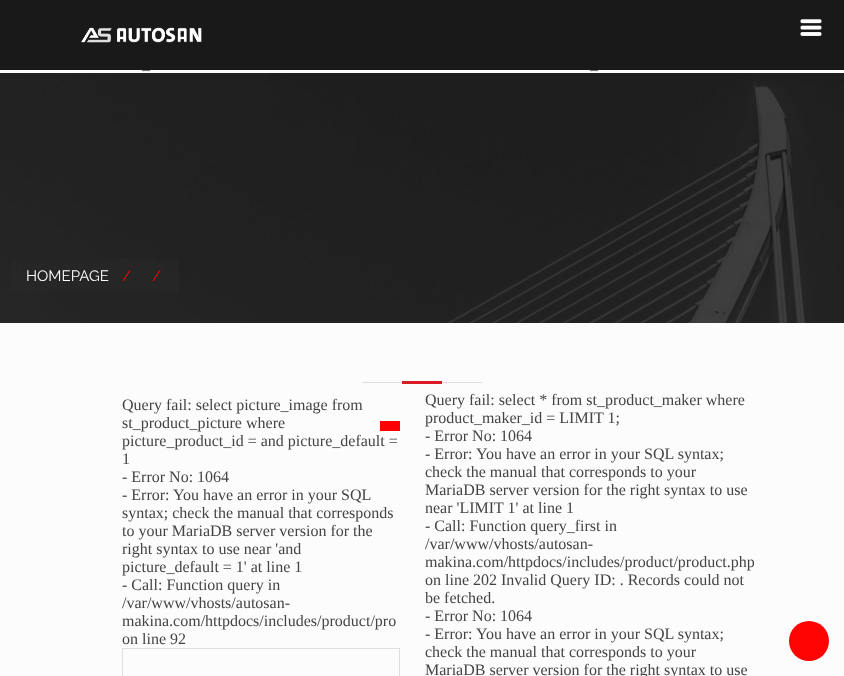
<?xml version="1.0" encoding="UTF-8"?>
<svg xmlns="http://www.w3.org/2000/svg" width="844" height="676">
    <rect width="100%" height="100%" fill="#FCFCFC"/>
    <rect x="0" y="0" width="844" height="70" fill="#000000" fill-opacity="0.9"/>
    <image x="81" y="27" width="121" height="16" href="img_01.png"/>
    <image x="800" y="19" width="22" height="17" href="img_02.png"/>
    <text x="142" y="69" font-family="Liberation Serif" font-size="16" fill="#444444">_</text>
    <text x="590" y="69" font-family="Liberation Serif" font-size="16" fill="#444444">_</text>
    <image x="0" y="73" width="844" height="250" href="img_03.png"/>
    <rect x="10" y="259" width="169" height="34" rx="4" fill="#333333" fill-opacity="0.2"/>
    <text x="26" y="281" font-family="Raleway" font-size="15" fill="#FFFFFF">HOMEPAGE</text>
    <text x="122" y="281" font-family="Raleway" font-size="15" fill="#FF0000">/</text>
    <text x="152" y="281" font-family="Raleway" font-size="15" fill="#FF0000">/</text>
    <rect x="362" y="382" width="120" height="1" fill="#DDDDDD"/>
    <rect x="402" y="381" width="40" height="3" fill="#DC1927"/>
    <text font-family="Liberation Serif" font-size="16" fill="#444444">
        <tspan x="122" y="410">Query fail: select picture_image from</tspan>
        <tspan x="122" y="428">st_product_picture where</tspan>
    </text>
    <rect x="122.5" y="648.5" width="277" height="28" fill="none" stroke="#DEDEDE"/>
    <rect x="380" y="421" width="20" height="10" fill="#FF0000"/>
    <text font-family="Liberation Serif" font-size="16" fill="#444444">
        <tspan x="122" y="446">picture_product_id = and picture_default =</tspan>
        <tspan x="122" y="464">1</tspan>
        <tspan x="122" y="482">- Error No: 1064</tspan>
        <tspan x="122" y="500">- Error: You have an error in your SQL</tspan>
        <tspan x="122" y="518">syntax; check the manual that corresponds</tspan>
        <tspan x="122" y="536">to your MariaDB server version for the</tspan>
        <tspan x="122" y="554">right syntax to use near 'and</tspan>
        <tspan x="122" y="572">picture_default = 1' at line 1</tspan>
        <tspan x="122" y="590">- Call: Function query in</tspan>
        <tspan x="122" y="608">/var/www/vhosts/autosan-</tspan>
        <tspan x="122" y="626">makina.com/httpdocs/includes/product/pro</tspan>
        <tspan x="122" y="644">on line 92</tspan>
    </text>
    <text font-family="Liberation Serif" font-size="16" fill="#444444">
        <tspan x="425" y="405">Query fail: select * from st_product_maker where</tspan>
        <tspan x="425" y="423">product_maker_id = LIMIT 1;</tspan>
        <tspan x="425" y="441">- Error No: 1064</tspan>
        <tspan x="425" y="459">- Error: You have an error in your SQL syntax;</tspan>
        <tspan x="425" y="477">check the manual that corresponds to your</tspan>
        <tspan x="425" y="495">MariaDB server version for the right syntax to use</tspan>
        <tspan x="425" y="513">near 'LIMIT 1' at line 1</tspan>
        <tspan x="425" y="531">- Call: Function query_first in</tspan>
        <tspan x="425" y="549">/var/www/vhosts/autosan-</tspan>
        <tspan x="425" y="567">makina.com/httpdocs/includes/product/product.php</tspan>
        <tspan x="425" y="585">on line 202 Invalid Query ID: . Records could not</tspan>
        <tspan x="425" y="603">be fetched.</tspan>
        <tspan x="425" y="621">- Error No: 1064</tspan>
        <tspan x="425" y="639">- Error: You have an error in your SQL syntax;</tspan>
        <tspan x="425" y="657">check the manual that corresponds to your</tspan>
        <tspan x="425" y="675">MariaDB server version for the right syntax to use</tspan>
    </text>
    <circle cx="809" cy="641" r="20" fill="#FF0303"/>
</svg>
